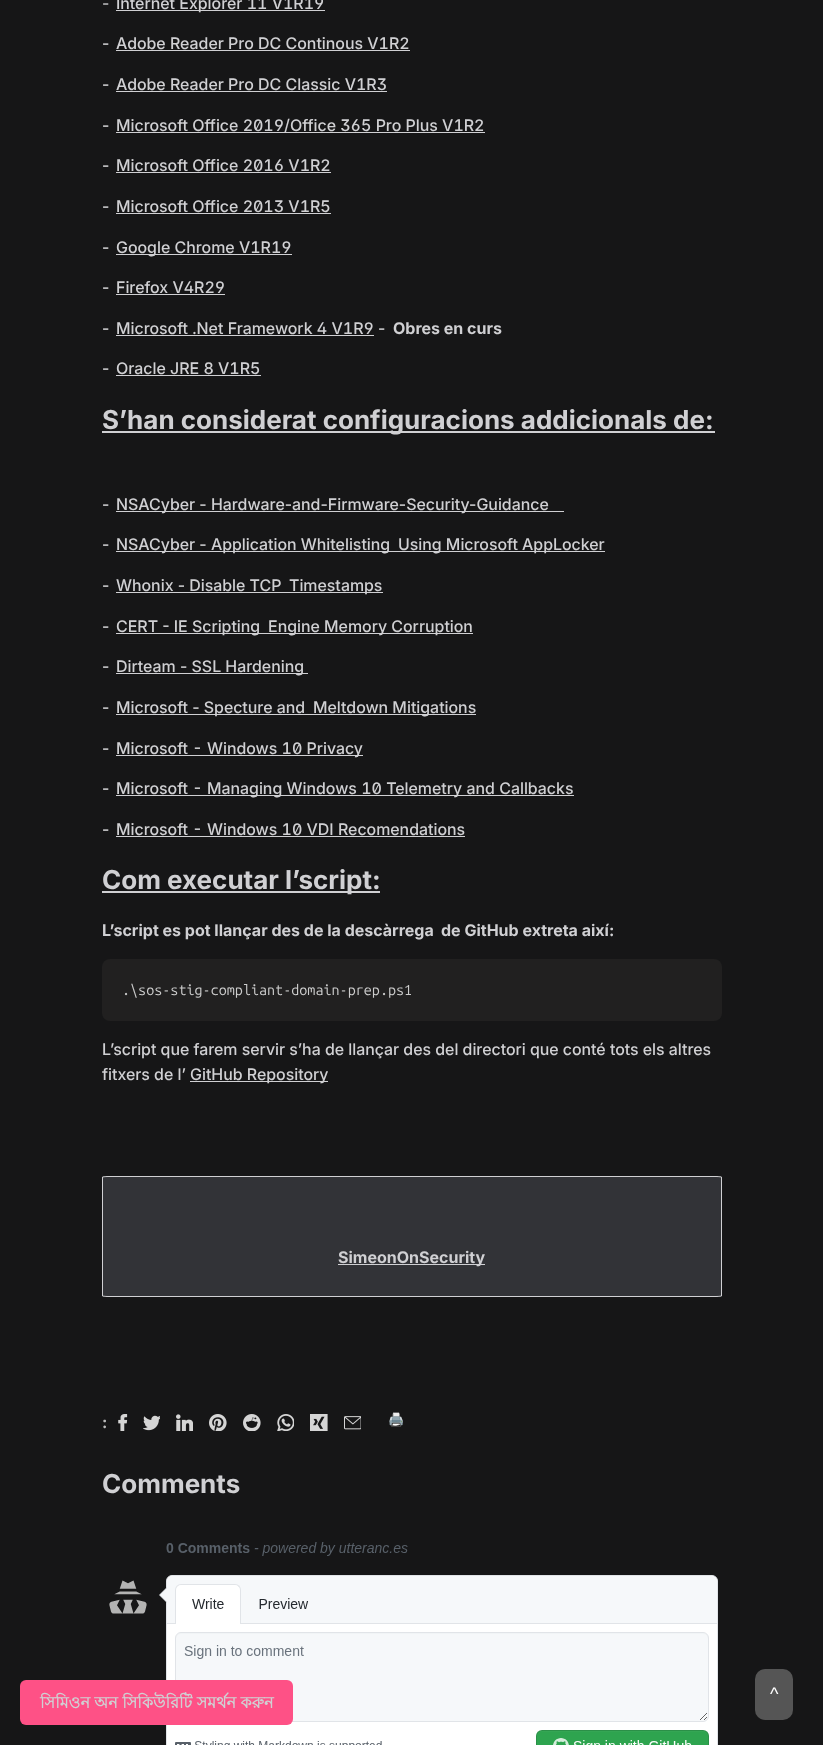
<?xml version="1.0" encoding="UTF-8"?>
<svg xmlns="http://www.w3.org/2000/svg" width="823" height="1745">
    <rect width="100%" height="100%" fill="#161617"/>
    <text x="102" y="9" font-family="Inter" font-size="16" fill="#D0D0D3">-</text>
    <rect x="116" y="10" width="209" height="1" fill="#D0D0D3"/>
    <text x="116" y="9" font-family="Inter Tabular" font-size="16" font-weight="500" fill="#D0D0D3">Internet Explorer 11 V1R19</text>
    <text x="102" y="49" font-family="Inter" font-size="16" font-weight="500" fill="#D0D0D3">-</text>
    <text x="116" y="49" font-family="Inter Tabular" font-size="16" font-weight="500" fill="#D0D0D3">Adobe Reader Pro DC Continous V1R2</text>
    <rect x="116" y="50" width="294" height="1" fill="#D0D0D3"/>
    <text x="102" y="90" font-family="Inter" font-size="16" font-weight="500" fill="#D0D0D3">-</text>
    <text x="116" y="90" font-family="Inter Tabular" font-size="16" font-weight="500" fill="#D0D0D3">Adobe Reader Pro DC Classic V1R3</text>
    <rect x="116" y="91" width="271" height="1" fill="#D0D0D3"/>
    <text x="102" y="131" font-family="Inter" font-size="16" font-weight="500" fill="#D0D0D3">-</text>
    <rect x="116" y="132" width="369" height="1" fill="#D0D0D3"/>
    <text x="116" y="131" font-family="Inter Tabular" font-size="16" font-weight="500" fill="#D0D0D3">Microsoft Office 2019/Office 365 Pro Plus V1R2</text>
    <text x="102" y="171" font-family="Inter" font-size="16" font-weight="500" fill="#D0D0D3">-</text>
    <text x="116" y="171" font-family="Inter Tabular" font-size="16" font-weight="500" fill="#D0D0D3">Microsoft Office 2016 V1R2</text>
    <rect x="116" y="172" width="215" height="1" fill="#D0D0D3"/>
    <text x="102" y="212" font-family="Inter" font-size="16" font-weight="500" fill="#D0D0D3">-</text>
    <text x="116" y="212" font-family="Inter Tabular" font-size="16" font-weight="500" fill="#D0D0D3">Microsoft Office 2013 V1R5</text>
    <rect x="116" y="213" width="215" height="1" fill="#D0D0D3"/>
    <text x="102" y="253" font-family="Inter" font-size="16" font-weight="500" fill="#D0D0D3">-</text>
    <rect x="116" y="254" width="176" height="1" fill="#D0D0D3"/>
    <text x="116" y="253" font-family="Inter Tabular" font-size="16" font-weight="500" fill="#D0D0D3">Google Chrome V1R19</text>
    <text x="102" y="293" font-family="Inter" font-size="16" font-weight="500" fill="#D0D0D3">-</text>
    <text x="116" y="293" font-family="Inter Tabular" font-size="16" font-weight="500" fill="#D0D0D3">Firefox V4R29</text>
    <rect x="116" y="294" width="109" height="1" fill="#D0D0D3"/>
    <text x="102" y="334" font-family="Inter" font-size="16" font-weight="500" fill="#D0D0D3">-</text>
    <text x="116" y="334" font-family="Inter Tabular" font-size="16" font-weight="500" fill="#D0D0D3">Microsoft .Net Framework 4 V1R9</text>
    <rect x="116" y="335" width="258" height="1" fill="#D0D0D3"/>
    <text x="378" y="334" font-family="Inter" font-size="16" font-weight="500" fill="#D0D0D3">-</text>
    <text x="393" y="334" font-family="Inter" font-size="16" font-weight="700" fill="#D0D0D3">Obres en curs</text>
    <text x="102" y="374" font-family="Inter" font-size="16" font-weight="500" fill="#D0D0D3">-</text>
    <text x="116" y="374" font-family="Inter Tabular" font-size="16" font-weight="500" fill="#D0D0D3">Oracle JRE 8 V1R5</text>
    <rect x="116" y="375" width="145" height="1" fill="#D0D0D3"/>
    <rect x="102" y="431" width="613" height="2" fill="#D0D0D3"/>
    <text x="102" y="429" font-family="Inter" font-size="26" font-weight="700" fill="#D0D0D3">S’han considerat configuracions addicionals de:</text>
    <text x="102" y="510" font-family="Inter" font-size="16" font-weight="500" fill="#D0D0D3">-</text>
    <rect x="116" y="511" width="448" height="1" fill="#D0D0D3"/>
    <text x="116" y="510" font-family="Inter" font-size="16" font-weight="500" fill="#D0D0D3">NSACyber - Hardware-and-Firmware-Security-Guidance</text>
    <text x="102" y="550" font-family="Inter" font-size="16" font-weight="500" fill="#D0D0D3">-</text>
    <rect x="116" y="551" width="489" height="1" fill="#D0D0D3"/>
    <text x="116" y="550" font-family="Inter" font-size="16" font-weight="500" fill="#D0D0D3">NSACyber - Application Whitelisting</text>
    <text x="398" y="550" font-family="Inter" font-size="16" font-weight="500" fill="#D0D0D3">Using Microsoft AppLocker</text>
    <text x="102" y="591" font-family="Inter" font-size="16" font-weight="500" fill="#D0D0D3">-</text>
    <rect x="116" y="592" width="267" height="1" fill="#D0D0D3"/>
    <text x="116" y="591" font-family="Inter" font-size="16" font-weight="500" fill="#D0D0D3">Whonix - Disable TCP</text>
    <text x="289" y="591" font-family="Inter" font-size="16" font-weight="500" fill="#D0D0D3">Timestamps</text>
    <text x="102" y="632" font-family="Inter" font-size="16" font-weight="500" fill="#D0D0D3">-</text>
    <rect x="116" y="633" width="357" height="1" fill="#D0D0D3"/>
    <text x="116" y="632" font-family="Inter" font-size="16" font-weight="500" fill="#D0D0D3">CERT - IE Scripting</text>
    <text x="268" y="632" font-family="Inter" font-size="16" font-weight="500" fill="#D0D0D3">Engine Memory Corruption</text>
    <text x="102" y="672" font-family="Inter" font-size="16" font-weight="500" fill="#D0D0D3">-</text>
    <rect x="116" y="673" width="192" height="1" fill="#D0D0D3"/>
    <text x="116" y="672" font-family="Inter" font-size="16" font-weight="500" fill="#D0D0D3">Dirteam - SSL Hardening</text>
    <text x="102" y="713" font-family="Inter" font-size="16" font-weight="500" fill="#D0D0D3">-</text>
    <rect x="116" y="714" width="360" height="1" fill="#D0D0D3"/>
    <text x="116" y="713" font-family="Inter" font-size="16" font-weight="500" fill="#D0D0D3">Microsoft - Specture and</text>
    <text x="313" y="713" font-family="Inter" font-size="16" font-weight="500" fill="#D0D0D3">Meltdown Mitigations</text>
    <text x="102" y="754" font-family="Inter" font-size="16" font-weight="500" fill="#D0D0D3">-</text>
    <rect x="116" y="755" width="247" height="1" fill="#D0D0D3"/>
    <text x="116" y="754" font-family="Inter Tabular" font-size="16" font-weight="500" fill="#D0D0D3">Microsoft - Windows 10 Privacy</text>
    <text x="102" y="794" font-family="Inter" font-size="16" font-weight="500" fill="#D0D0D3">-</text>
    <rect x="116" y="795" width="458" height="1" fill="#D0D0D3"/>
    <text x="116" y="794" font-family="Inter Tabular" font-size="16" font-weight="500" fill="#D0D0D3">Microsoft - Managing Windows 10 Telemetry and Callbacks</text>
    <text x="102" y="835" font-family="Inter" font-size="16" font-weight="500" fill="#D0D0D3">-</text>
    <text x="116" y="835" font-family="Inter Tabular" font-size="16" font-weight="500" fill="#D0D0D3">Microsoft - Windows 10 VDI Recomendations</text>
    <rect x="116" y="836" width="349" height="1" fill="#D0D0D3"/>
    <rect x="102" y="891" width="278" height="2" fill="#D0D0D3"/>
    <text x="102" y="889" font-family="Inter" font-size="26" font-weight="700" fill="#D0D0D3">Com executar l’script:</text>
    <text x="102" y="936" font-family="Inter" font-size="16" font-weight="700" fill="#D0D0D3">L’script es pot llançar des de la descàrrega</text>
    <text x="441" y="936" font-family="Inter" font-size="16" font-weight="700" fill="#D0D0D3">de GitHub extreta així:</text>
    <rect x="102" y="959" width="620" height="62" rx="8" fill="#212020"/>
    <text x="122" y="995" font-family="Ubuntu Mono" font-size="14.4" fill="#CCCCCC">.\sos-stig-compliant-domain-prep.ps1</text>
    <text font-family="Inter" font-size="16" font-weight="500" fill="#D0D0D3">
        <tspan x="102" y="1055">L’script que farem servir s’ha de llançar des del directori que conté tots els altres</tspan>
        <tspan x="102" y="1080">fitxers de l’</tspan>
    </text>
    <rect x="190" y="1081" width="138" height="1" fill="#D0D0D3"/>
    <text x="190" y="1080" font-family="Inter" font-size="16" font-weight="500" fill="#D0D0D3">GitHub Repository</text>
    <path d="M 108 1176 H 716 C 719 1176 722 1177 722 1177 V 1296 C 722 1296 719 1297 716 1297 H 108 C 105 1297 102 1296 102 1296 V 1177 C 102 1177 105 1176 108 1176 Z" fill="#323337"/>
    <path d="M 108 1176.5 H 716 C 719 1176.5 721.5 1177 721.5 1177 V 1296 C 721.5 1296 719 1296.5 716 1296.5 H 108 C 105 1296.5 102.5 1296 102.5 1296 V 1177 C 102.5 1177 105 1176.5 108 1176.5 Z" fill="none" stroke="#D0D0D3"/>
    <rect x="338" y="1264" width="147" height="1" fill="#D0D0D3"/>
    <text x="338" y="1263" font-family="Inter" font-size="16" font-weight="700" fill="#D0D0D3">SimeonOnSecurity</text>
    <text x="102" y="1428" font-family="Inter" font-size="16" font-weight="700" fill="#BBBBBB">:</text>
    <image x="118" y="1414" width="10" height="17" href="img_01.png"/>
    <image x="143" y="1415" width="17" height="16" href="img_02.png"/>
    <image x="176" y="1414" width="17" height="17" href="img_03.png"/>
    <image x="209" y="1414" width="18" height="17" href="img_04.png"/>
    <image x="243" y="1414" width="18" height="17" href="img_05.png"/>
    <image x="277" y="1414" width="17" height="17" href="img_06.png"/>
    <image x="310" y="1414" width="18" height="17" href="img_07.png"/>
    <image x="344" y="1416" width="17" height="14" href="img_08.png"/>
    <text x="388" y="1424" font-family="Noto Color Emoji" font-size="13" fill="#D0D0D3">🖨️</text>
    <text x="102" y="1493" font-family="Inter" font-size="26" font-weight="700" fill="#D0D0D3">Comments</text>
    <image x="109" y="1542" width="609" height="203" href="img_09.png"/>
    <rect x="755" y="1669" width="38" height="51" rx="10" fill="#555555"/>
    <text x="770" y="1700" font-family="Liberation Sans" font-size="18" fill="#FFFFFF">^</text>
    <rect x="20" y="1680" width="273" height="45" rx="6" fill="#FE5186"/>
    <text x="40" y="1708" font-family="Lohit Bengali" font-size="16" font-weight="700" fill="#D0D0D3">সিমিওন অন সিকিউরিটি সমর্থন করুন</text>
</svg>
